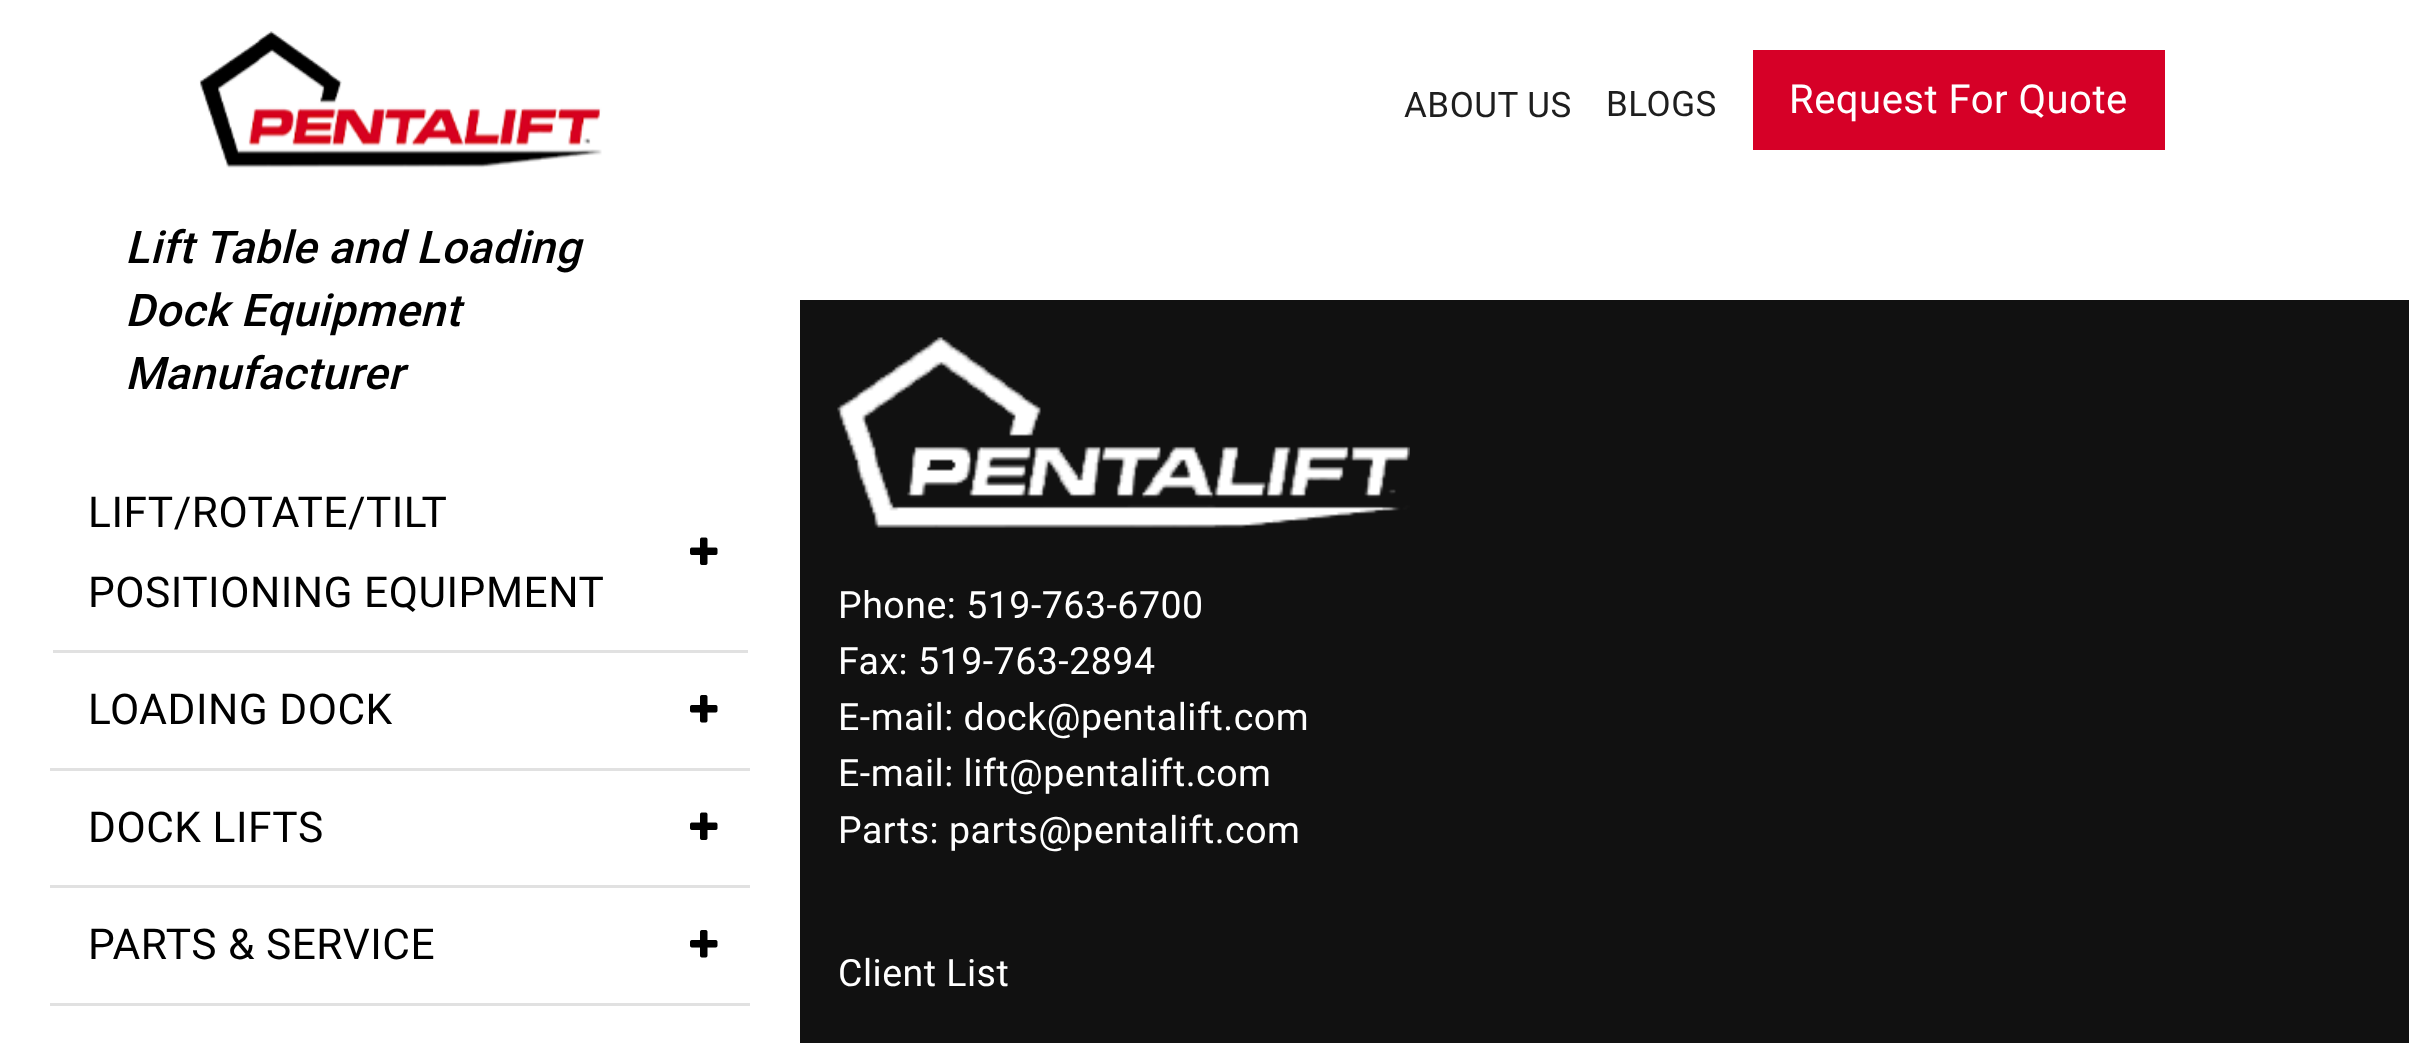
<?xml version="1.0" encoding="UTF-8"?>
<svg xmlns="http://www.w3.org/2000/svg" width="2409" height="1043">
    <rect width="100%" height="100%" fill="#FFFFFF"/>
    <text x="1404" y="117" font-family="Roboto" font-size="35" letter-spacing="0.5" fill="#1E1E1E">ABOUT US</text>
    <text x="1606" y="116" font-family="Roboto" font-size="35" letter-spacing="0.5" fill="#1E1E1E">BLOGS</text>
    <rect x="1753" y="50" width="412" height="100" fill="#D60027"/>
    <text x="1789" y="113" font-family="Roboto" font-size="40" letter-spacing="0.5" fill="#FFFFFF">Request For Quote</text>
    <image x="199" y="31" width="403" height="137" href="img_01.png"/>
    <text font-family="Roboto" font-size="45" font-weight="500" font-style="italic" letter-spacing="0.5" fill="#000000">
        <tspan x="125" y="263">Lift Table and Loading</tspan>
        <tspan x="125" y="326">Dock Equipment</tspan>
        <tspan x="125" y="389">Manufacturer</tspan>
    </text>
    <rect x="53" y="650" width="695" height="3" fill="#E1E1E1"/>
    <text font-family="Roboto" font-size="42.5" letter-spacing="0.5" fill="#000000">
        <tspan x="88" y="527">LIFT/ROTATE/TILT</tspan>
        <tspan x="88" y="607">POSITIONING EQUIPMENT</tspan>
    </text>
    <image x="690" y="537" width="28" height="28" href="img_02.png"/>
    <rect x="50" y="768" width="700" height="3" fill="#E1E1E1"/>
    <text x="88" y="724" font-family="Roboto" font-size="42.5" letter-spacing="0.5" fill="#000000">LOADING DOCK</text>
    <image x="690" y="695" width="28" height="28" href="img_03.png"/>
    <rect x="50" y="885" width="700" height="3" fill="#E1E1E1"/>
    <text x="88" y="842" font-family="Roboto" font-size="42.5" letter-spacing="0.5" fill="#000000">DOCK LIFTS</text>
    <image x="690" y="812" width="28" height="28" href="img_02.png"/>
    <rect x="50" y="1003" width="700" height="3" fill="#E1E1E1"/>
    <text x="88" y="959" font-family="Roboto" font-size="42.5" letter-spacing="0.5" fill="#000000">PARTS &amp; SERVICE</text>
    <image x="690" y="930" width="28" height="28" href="img_03.png"/>
    <rect x="800" y="300" width="1609" height="743" fill="#111111"/>
    <image x="837" y="337" width="573" height="191" href="img_04.png"/>
    <text font-family="Roboto" font-size="37.5" letter-spacing="0.5" fill="#FFFFFF">
        <tspan x="838" y="618">Phone: 519-763-6700</tspan>
        <tspan x="838" y="674">Fax: 519-763-2894</tspan>
        <tspan x="838" y="730">E-mail: dock@pentalift.com</tspan>
        <tspan x="838" y="786">E-mail: lift@pentalift.com</tspan>
        <tspan x="838" y="843">Parts: parts@pentalift.com</tspan>
    </text>
    <text x="838" y="986" font-family="Roboto" font-size="37.5" letter-spacing="0.5" fill="#FFFFFF">Client List</text>
</svg>
